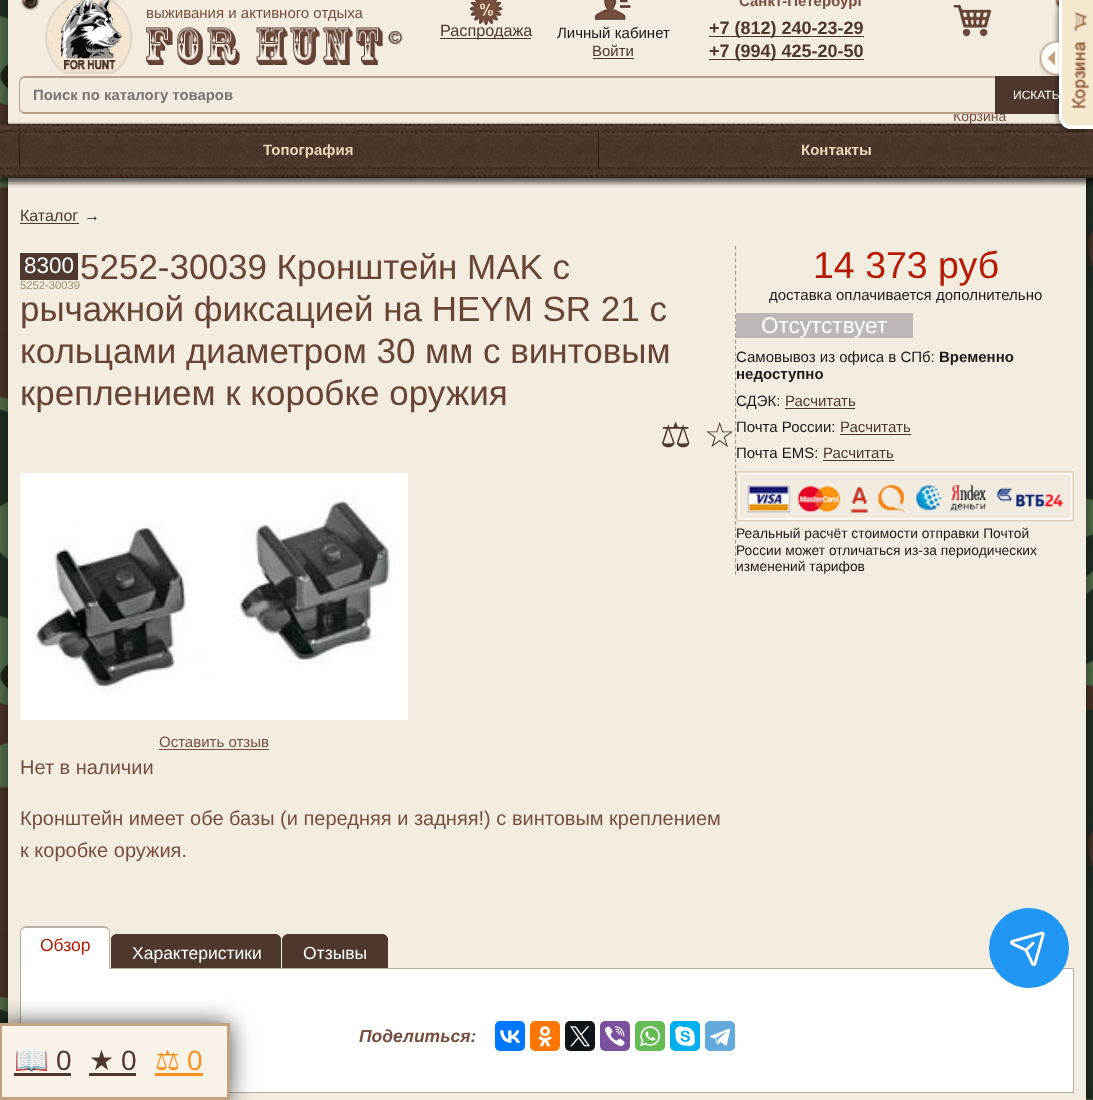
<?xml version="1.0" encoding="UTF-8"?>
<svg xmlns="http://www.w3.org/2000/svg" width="1093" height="1100">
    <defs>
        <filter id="blur1" x="-50%" y="-200%" width="200%" height="500%"><feGaussianBlur stdDeviation="8"/></filter>
        <filter id="blur2" x="-50%" y="-200%" width="200%" height="500%"><feGaussianBlur stdDeviation="2.5"/></filter>
        <filter id="blur3" x="-50%" y="-200%" width="200%" height="500%"><feGaussianBlur stdDeviation="3"/></filter>
        <filter id="blur4" x="-50%" y="-200%" width="200%" height="500%"><feGaussianBlur stdDeviation="12.5"/></filter>
    </defs>
    <rect width="100%" height="100%" fill="#FFFFFF"/>
    <image x="0" y="0" width="1093" height="1100" href="img_01.png"/>
    <rect x="8" y="-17" width="1078" height="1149" rx="8" fill="#000000" fill-opacity="0.5" filter="url(#blur1)"/>
    <rect x="8" y="0" width="1054" height="124" fill="#F2ECE1"/>
    <image x="20" y="0" width="20" height="11" href="img_02.png"/>
    <image x="1054" y="0" width="5" height="10" href="img_03.png"/>
    <image x="45" y="0" width="88" height="74" href="img_04.png"/>
    <text x="739" y="6" font-family="Liberation Sans" font-size="15" font-weight="700" fill="#774F3F">Санкт-Петербург</text>
    <rect x="709" y="36" width="155" height="1" fill="#4E372D"/>
    <text x="709" y="34" font-family="Liberation Sans" font-size="18" font-weight="700" fill="#4E372D">+7 (812) 240-23-29</text>
    <rect x="709" y="59" width="155" height="1" fill="#4E372D"/>
    <text x="709" y="57" font-family="Liberation Sans" font-size="18" font-weight="700" fill="#4E372D">+7 (994) 425-20-50</text>
    <text x="146" y="18" font-family="Liberation Sans" font-size="15" fill="#774F3F">выживания и активного отдыха</text>
    <image x="146" y="27" width="237" height="38" href="img_05.png"/>
    <image x="387" y="31" width="16" height="13" href="img_06.png"/>
    <text x="953" y="121" font-family="Liberation Sans" font-size="14" fill="#774F3F">Корзина</text>
    <path d="M 25 76 H 995 V 114 H 25 C 21.5 114 19 111.5 19 108 V 82 C 19 78.5 21.5 76 25 76 Z" fill="#F2ECE0"/>
    <path d="M 25 76 H 995 V 114 H 25 C 22 114 19 111 19 108 V 82 C 19 79 22 76 25 76 Z M 25 78 H 995 V 112 H 25 C 22 112 20 110 20 108 V 82 C 20 80 22 78 25 78 Z" fill="#B9A087" fill-rule="evenodd"/>
    <text x="33" y="100" font-family="Liberation Sans" font-size="14.9" font-weight="700" fill="#757575">Поиск по каталогу товаров</text>
    <rect x="995" y="76" width="64" height="38" fill="#4E372D"/>
    <text x="1013" y="99" font-family="Liberation Sans" font-size="12" fill="#FFFFFF">ИСКАТЬ</text>
    <image x="470" y="0" width="33" height="25" href="img_07.png"/>
    <rect x="440" y="38" width="91" height="1" fill="#4E372D"/>
    <text x="440" y="36" font-family="Liberation Sans" font-size="16.25" fill="#4E372D">Распродажа</text>
    <image x="595" y="0" width="36" height="20" href="img_08.png"/>
    <text x="557" y="38" font-family="Liberation Sans" font-size="15" fill="#1B1B1B">Личный кабинет</text>
    <text x="592" y="56" font-family="Liberation Sans" font-size="15" fill="#4E372D">Войти</text>
    <rect x="593" y="58" width="41" height="1" fill="#4E372D"/>
    <image x="953" y="5" width="39" height="32" href="img_09.png"/>
    <rect x="8" y="178" width="1078" height="922" fill="#F2ECE1"/>
    <rect x="-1" y="126" width="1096" height="57" fill="#000000" fill-opacity="0.6" filter="url(#blur2)"/>
    <image x="0" y="123" width="1093" height="55" href="img_10.png"/>
    <rect x="19" y="133" width="1" height="36" fill="#281C16"/>
    <text x="263" y="155" font-family="Liberation Sans" font-size="15" font-weight="700" fill="#EBD7B4">Топография</text>
    <rect x="598" y="133" width="1" height="36" fill="#281C16"/>
    <text x="801" y="155" font-family="Liberation Sans" font-size="15" font-weight="700" fill="#EBD7B4">Контакты</text>
    <rect x="1059" y="0" width="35" height="129" rx="13" fill="#000000" fill-opacity="0.75" filter="url(#blur3)"/>
    <path d="M 1059 0 H 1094 V 129 H 1072 C 1065 129 1059 123 1059 116 Z" fill="#F4E8CF"/>
    <image x="1071" y="12" width="18" height="97" href="img_11.png"/>
    <path d="M 1059 0 H 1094 V 129 H 1071 C 1064 129 1059 123 1059 116 Z M 1062 0 H 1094 V 125 H 1071 C 1066 125 1062 121 1062 116 Z" fill="#FFFFFF" fill-rule="evenodd"/>
    <image x="1039" y="40" width="20" height="36" href="img_12.png"/>
    <text x="20" y="221" font-family="Liberation Sans" font-size="16" fill="#4E372D">Каталог</text>
    <rect x="20" y="223" width="59" height="1" fill="#4E372D"/>
    <text x="84" y="221" font-family="Liberation Sans" font-size="16" fill="#1B1B1B">→</text>
    <rect x="20" y="253" width="58" height="27" fill="#4F382E"/>
    <text x="24" y="273" font-family="Liberation Sans" font-size="22.5" fill="#FFFFFF">8300</text>
    <text x="20" y="289" font-family="Liberation Sans" font-size="11.25" fill="#A38F6D">5252-30039</text>
    <text x="80" y="279" font-family="Liberation Sans" font-size="35" fill="#684435">5252-30039 Кронштейн MAK с</text>
    <text font-family="Liberation Sans" font-size="35" fill="#684435">
        <tspan x="20" y="321">рычажной фиксацией на HEYM SR 21 с</tspan>
        <tspan x="20" y="363">кольцами диаметром 30 мм с винтовым</tspan>
        <tspan x="20" y="405">креплением к коробке оружия</tspan>
    </text>
    <text x="660" y="447" font-family="DejaVu Sans" font-size="35" fill="#4E372D">⚖</text>
    <text x="704" y="447" font-family="DejaVu Sans" font-size="35" fill="#4E372D">☆</text>
    <rect x="20" y="473" width="388" height="247" fill="#FFFFFF"/>
    <image x="34" y="495" width="366" height="198" href="img_13.png"/>
    <text x="159" y="747" font-family="Liberation Sans" font-size="15" fill="#774F3F">Оставить отзыв</text>
    <rect x="159" y="749" width="110" height="1" fill="#774F3F"/>
    <text x="20" y="774" font-family="Liberation Sans" font-size="20" fill="#774F3F">Нет в наличии</text>
    <text font-family="Liberation Sans" font-size="20" fill="#774F3F">
        <tspan x="20" y="825">Кронштейн имеет обе базы (и передняя и задняя!) с винтовым креплением</tspan>
        <tspan x="20" y="857">к коробке оружия.</tspan>
    </text>
    <path d="M 735.5 246 V 575" fill="none" stroke="#B29A86" stroke-width="1.2" stroke-dasharray="3.75 2.5"/>
    <text x="813" y="278" font-family="Liberation Sans" font-size="37.5" fill="#B41B02">14 373 руб</text>
    <text x="769" y="300" font-family="Liberation Sans" font-size="15" fill="#1B1B1B">доставка оплачивается дополнительно</text>
    <rect x="736" y="313" width="177" height="25" fill="#BDB8B7"/>
    <text x="761" y="333" font-family="Liberation Sans" font-size="22.5" fill="#FFFFFF">Отсутствует</text>
    <text x="736" y="362" font-family="Liberation Sans" font-size="15" fill="#1B1B1B">Самовывоз из офиса в СПб:</text>
    <text x="939" y="362" font-family="Liberation Sans" font-size="15" font-weight="700" fill="#1B1B1B">Временно</text>
    <text x="736" y="379" font-family="Liberation Sans" font-size="15" font-weight="700" fill="#1B1B1B">недоступно</text>
    <text x="736" y="406" font-family="Liberation Sans" font-size="15" fill="#1B1B1B">СДЭК:</text>
    <text x="785" y="406" font-family="Liberation Sans" font-size="15" fill="#4E372D">Расчитать</text>
    <rect x="785" y="408" width="70" height="1" fill="#4E372D"/>
    <text x="736" y="432" font-family="Liberation Sans" font-size="15" fill="#1B1B1B">Почта России:</text>
    <text x="840" y="432" font-family="Liberation Sans" font-size="15" fill="#4E372D">Расчитать</text>
    <rect x="840" y="434" width="71" height="1" fill="#4E372D"/>
    <text x="736" y="458" font-family="Liberation Sans" font-size="15" fill="#1B1B1B">Почта EMS:</text>
    <text x="823" y="458" font-family="Liberation Sans" font-size="15" fill="#4E372D">Расчитать</text>
    <rect x="823" y="460" width="71" height="1" fill="#4E372D"/>
    <image x="736" y="471" width="338" height="51" href="img_14.png"/>
    <text font-family="Liberation Sans" font-size="13.8" fill="#1B1B1B">
        <tspan x="736" y="538">Реальный расчёт стоимости отправки Почтой</tspan>
        <tspan x="736" y="555">России может отличаться из-за периодических</tspan>
        <tspan x="736" y="571">изменений тарифов</tspan>
    </text>
    <path d="M 117 934 H 275 C 278.5 934 281 936.5 281 940 V 969 H 111 V 940 C 111 936.5 113.5 934 117 934 Z" fill="#4E372D"/>
    <path d="M 118 934 H 275 C 278 934 281 937 281 940 V 969 H 111 V 940 C 111 937 114 934 118 934 Z M 118 935 H 275 C 278 935 280 937 280 940 V 969 H 112 V 940 C 112 937 115 935 118 935 Z" fill="#4E372D" fill-rule="evenodd"/>
    <path d="M 289 934 H 382 C 385.5 934 388 936.5 388 940 V 969 H 283 V 940 C 283 936.5 285.5 934 289 934 Z" fill="#4E372D"/>
    <path d="M 289 934 H 381 C 385 934 388 937 388 940 V 969 H 282 V 940 C 282 937 285 934 289 934 Z M 289 935 H 381 C 384 935 386 937 386 940 V 969 H 284 V 940 C 284 937 286 935 289 935 Z" fill="#4E372D" fill-rule="evenodd"/>
    <rect x="20.5" y="968.5" width="1053" height="124" fill="#FFFFFF" stroke="#B4AAA6"/>
    <path d="M 26 926 H 104 C 107.5 926 110 928.5 110 932 V 969 H 20 V 932 C 20 928.5 22.5 926 26 926 Z" fill="#FFFFFF"/>
    <path d="M 26 926 H 104 C 107 926 110 929 110 932 V 969 H 20 V 932 C 20 929 23 926 26 926 Z M 26 928 H 104 C 107 928 109 930 109 932 V 969 H 21 V 932 C 21 930 23 928 26 928 Z" fill="#BAB0AA" fill-rule="evenodd"/>
    <text x="40" y="951" font-family="Liberation Sans" font-size="17.5" fill="#B41B02">Обзор</text>
    <text x="132" y="959" font-family="Liberation Sans" font-size="17.5" fill="#FFFFFF">Характеристики</text>
    <text x="303" y="959" font-family="Liberation Sans" font-size="17.5" fill="#FFFFFF">Отзывы</text>
    <text x="359" y="1042" font-family="Liberation Sans" font-size="17.5" font-weight="700" font-style="italic" fill="#774F3F">Поделиться:</text>
    <rect x="495" y="1021" width="30" height="30" rx="5" fill="#0077FF"/>
    <image x="500" y="1030" width="20" height="13" href="img_15.png"/>
    <rect x="530" y="1021" width="30" height="30" rx="5" fill="#FF7700"/>
    <image x="538" y="1026" width="14" height="21" href="img_16.png"/>
    <rect x="565" y="1021" width="30" height="30" rx="5" fill="#0F1419"/>
    <image x="570" y="1026" width="20" height="21" href="img_17.png"/>
    <rect x="600" y="1021" width="30" height="30" rx="5" fill="#7B519D"/>
    <image x="605" y="1026" width="20" height="21" href="img_18.png"/>
    <rect x="635" y="1021" width="30" height="30" rx="5" fill="#65BC54"/>
    <image x="640" y="1026" width="20" height="21" href="img_19.png"/>
    <rect x="670" y="1021" width="30" height="30" rx="5" fill="#00AFF0"/>
    <image x="675" y="1026" width="20" height="21" href="img_20.png"/>
    <rect x="705" y="1021" width="30" height="30" rx="5" fill="#64A9DC"/>
    <image x="710" y="1028" width="20" height="18" href="img_21.png"/>
    <rect x="-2" y="1024" width="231" height="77" fill="#000000" fill-opacity="0.75" filter="url(#blur4)"/>
    <rect x="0.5" y="1024.5" width="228" height="74" fill="#F8F2E8" stroke="#C1A37F" stroke-width="3"/>
    <rect x="14" y="1073" width="57" height="3" fill="#4E372D"/>
    <text x="14" y="1070" font-family="Noto Color Emoji" font-size="28" fill="#4E372D">📖</text>
    <text x="56" y="1070" font-family="Liberation Sans" font-size="28" fill="#4E372D">0</text>
    <text x="89" y="1070" font-family="DejaVu Sans" font-size="28" fill="#4E372D">★</text>
    <rect x="89" y="1073" width="47" height="3" fill="#4E372D"/>
    <text x="121" y="1070" font-family="Liberation Sans" font-size="28" fill="#4E372D">0</text>
    <text x="155" y="1070" font-family="DejaVu Sans" font-size="28" fill="#FF901C">⚖</text>
    <text x="187" y="1070" font-family="Liberation Sans" font-size="28" fill="#FF901C">0</text>
    <rect x="155" y="1073" width="48" height="3" fill="#FF901C"/>
    <circle cx="1029" cy="948" r="40" fill="#2196F3"/>
    <image x="1010" y="931" width="35" height="36" href="img_22.png"/>
</svg>
